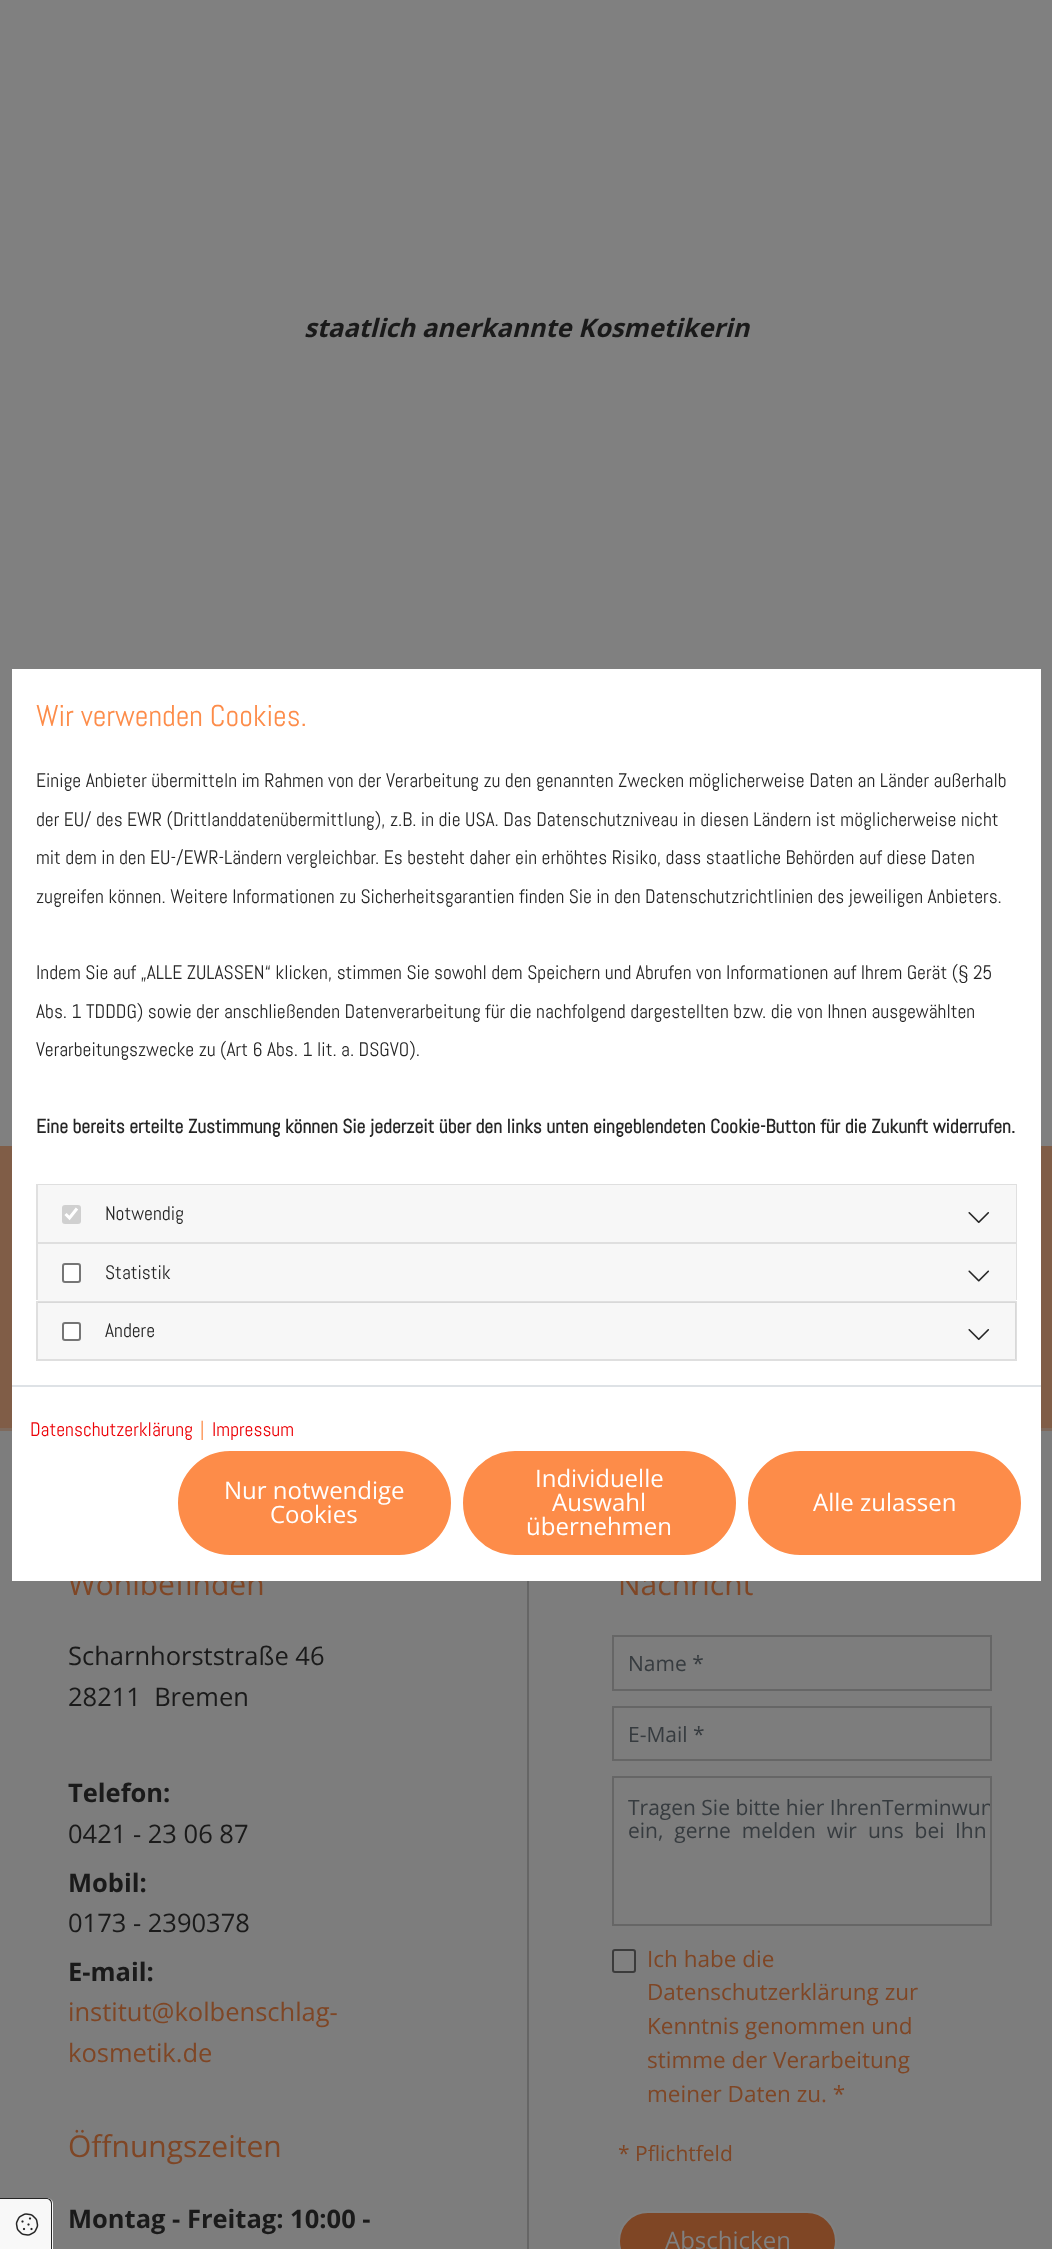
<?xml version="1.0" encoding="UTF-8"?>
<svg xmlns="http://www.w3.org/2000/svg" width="1052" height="2249">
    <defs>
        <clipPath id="clip1"><rect x="614" y="1778" width="376" height="147"/></clipPath>
    </defs>
    <rect width="100%" height="100%" fill="#808080"/>
    <text x="304" y="337" font-family="Open Sans" font-size="25.5" font-weight="700" font-style="italic" fill="#1A1A1A">staatlich anerkannte Kosmetikerin</text>
    <rect x="0" y="1146" width="1052" height="282" fill="#805D47"/>
    <rect x="0" y="1431" width="1052" height="818" fill="#7D7D7D"/>
    <rect x="0" y="1428" width="1052" height="3" fill="#7E6A5D"/>
    <text x="68" y="1595" font-family="Open Sans" font-size="30" fill="#7F4625">Wohlbefinden</text>
    <text font-family="Open Sans" font-size="25.5" fill="#1A1A1A" xml:space="preserve"><tspan x="68" y="1665">Scharnhorststraße 46</tspan><tspan x="68" y="1706">28211  Bremen</tspan></text>
    <text x="68" y="1802" font-family="Open Sans" font-size="25.5" font-weight="700" fill="#1A1A1A">Telefon:</text>
    <text x="68" y="1843" font-family="Open Sans" font-size="25.5" fill="#1A1A1A">0421 - 23 06 87</text>
    <text x="68" y="1892" font-family="Open Sans" font-size="25.5" font-weight="700" fill="#1A1A1A">Mobil:</text>
    <text x="68" y="1932" font-family="Open Sans" font-size="25.5" fill="#1A1A1A">0173 - 2390378</text>
    <text x="68" y="1981" font-family="Open Sans" font-size="25.5" font-weight="700" fill="#1A1A1A">E-mail:</text>
    <text font-family="Open Sans" font-size="25.5" fill="#7F4625">
        <tspan x="68" y="2021">institut@kolbenschlag-</tspan>
        <tspan x="68" y="2062">kosmetik.de</tspan>
    </text>
    <text x="68" y="2157" font-family="Open Sans" font-size="30" fill="#7F4625">Öffnungszeiten</text>
    <text x="68" y="2228" font-family="Open Sans" font-size="25.5" font-weight="700" fill="#1A1A1A">Montag - Freitag: 10:00 -</text>
    <rect x="527" y="1581" width="2" height="668" fill="#666666"/>
    <text x="618" y="1595" font-family="Open Sans" font-size="30" fill="#7F4625">Nachricht</text>
    <rect x="613" y="1636" width="378" height="54" fill="none" stroke="#666666" stroke-width="2"/>
    <text x="628" y="1671" font-family="Open Sans" font-size="21" fill="#363B3F">Name *</text>
    <rect x="613" y="1707" width="378" height="53" fill="none" stroke="#666666" stroke-width="2"/>
    <text x="628" y="1742" font-family="Open Sans" font-size="21" fill="#363B3F">E-Mail *</text>
    <rect x="613" y="1777" width="378" height="148" fill="none" stroke="#666666" stroke-width="2"/>
    <text x="628" y="1815" font-family="Open Sans" font-size="21" fill="#363B3F">Tragen Sie bitte hier Ihren</text>
    <g clip-path="url(#clip1)">
        <text x="882" y="1815" font-family="Open Sans" font-size="21" fill="#363B3F">Terminwun</text>
    </g>
    <text x="628" y="1838" word-spacing="5.5" font-family="Open Sans" font-size="21" fill="#363B3F">ein, gerne melden wir uns bei</text>
    <text x="955" y="1838" font-family="Open Sans" font-size="21" fill="#363B3F">Ihn</text>
    <rect x="613" y="1950" width="22" height="22" rx="2" fill="#808080" stroke="#3B3B3B" stroke-width="2"/>
    <text font-family="Open Sans" font-size="22.5" fill="#7F4625">
        <tspan x="647" y="1967">Ich habe die</tspan>
        <tspan x="647" y="2000">Datenschutzerklärung zur</tspan>
        <tspan x="647" y="2034">Kenntnis genommen und</tspan>
        <tspan x="647" y="2068">stimme der Verarbeitung</tspan>
        <tspan x="647" y="2102">meiner Daten zu. *</tspan>
    </text>
    <text x="618" y="2161" font-family="Open Sans" font-size="21" fill="#7F4625">* Pflichtfeld</text>
    <rect x="619" y="2212" width="217" height="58" rx="29" fill="#7F4625" stroke="#808080" stroke-width="2"/>
    <text x="665" y="2249" font-family="Open Sans" font-size="24" fill="#808080">Abschicken</text>
    <rect x="12" y="669" width="1029" height="912" fill="#FFFFFF"/>
    <text x="36" y="726" font-family="Abel" font-size="30" fill="#FD8C49">Wir verwenden Cookies.</text>
    <text x="36" y="787" font-family="Abel" font-size="19.5" fill="#252525">Einige Anbieter übermitteln im Rahmen von der Verarbeitung zu den genannten Zwecken möglicherweise Daten an Länder außerhalb</text>
    <text font-family="Abel" font-size="19.5" fill="#252525">
        <tspan x="36" y="826">der EU/ des EWR (Drittlanddatenübermittlung), z.B. in die USA. Das Datenschutzniveau in diesen Ländern ist möglicherweise nicht</tspan>
        <tspan x="36" y="864">mit dem in den EU-/EWR-Ländern vergleichbar. Es besteht daher ein erhöhtes Risiko, dass staatliche Behörden auf diese Daten</tspan>
    </text>
    <text x="36" y="903" font-family="Abel" font-size="19.5" fill="#252525">zugreifen können. Weitere Informationen zu Sicherheitsgarantien finden Sie in den Datenschutzrichtlinien des jeweiligen Anbieters.</text>
    <text x="36" y="979" font-family="Abel" font-size="19.5" fill="#252525">Indem Sie auf „ALLE ZULASSEN“ klicken, stimmen Sie sowohl dem Speichern und Abrufen von Informationen auf Ihrem Gerät (§ 25</text>
    <text font-family="Abel" font-size="19.5" fill="#252525">
        <tspan x="36" y="1018">Abs. 1 TDDDG) sowie der anschließenden Datenverarbeitung für die nachfolgend dargestellten bzw. die von Ihnen ausgewählten</tspan>
        <tspan x="36" y="1056">Verarbeitungszwecke zu (Art 6 Abs. 1 lit. a. DSGVO).</tspan>
    </text>
    <text x="36" y="1133" font-family="Abel" font-size="19.5" font-weight="700" fill="#252525">Eine bereits erteilte Zustimmung können Sie jederzeit über den links unten eingeblendeten Cookie-Button für die Zukunft widerrufen.</text>
    <path d="M 36 1184 H 1017 L 1016 1185 H 38 Z" fill="#DFDFDF"/>
    <path d="M 1017 1184 V 1242 H 1016 V 1185 Z" fill="#000000" fill-opacity="0.12"/>
    <path d="M 36 1242 V 1184 L 38 1185 V 1242 Z" fill="#000000" fill-opacity="0.12"/>
    <rect x="38" y="1185" width="978" height="57" fill="#F7F7F7"/>
    <rect x="62" y="1205" width="19" height="19" rx="3" fill="#D0D0D0"/>
    <path d="M 65.5 1214 L 69.5 1218 L 77 1208.5" fill="none" stroke="#FFFFFF" stroke-width="3.1"/>
    <text x="105" y="1220" font-family="Abel" font-size="19.5" fill="#252525">Notwendig</text>
    <image x="968" y="1212" width="22" height="12" href="img_01.png"/>
    <path d="M 36 1242 H 1017 L 1016 1244 H 38 Z" fill="#DFDFDF"/>
    <path d="M 1017 1242 V 1300 H 1016 V 1244 Z" fill="#000000" fill-opacity="0.12"/>
    <path d="M 36 1300 V 1242 L 38 1244 V 1300 Z" fill="#000000" fill-opacity="0.12"/>
    <rect x="38" y="1244" width="978" height="57" fill="#F7F7F7"/>
    <rect x="63" y="1264" width="17" height="18" rx="2" fill="#FFFFFF" stroke="#767676" stroke-width="2"/>
    <text x="105" y="1279" font-family="Abel" font-size="19.5" fill="#252525">Statistik</text>
    <image x="968" y="1270" width="22" height="12" href="img_02.png"/>
    <rect x="37" y="1302" width="979" height="58" fill="none" stroke="#DFDFDF" stroke-width="2"/>
    <rect x="38" y="1302" width="978" height="57" fill="#000000" fill-opacity="0.03"/>
    <rect x="63" y="1323" width="17" height="17" rx="2" fill="#FFFFFF" stroke="#767676" stroke-width="2"/>
    <text x="105" y="1337" font-family="Abel" font-size="19.5" fill="#252525">Andere</text>
    <image x="968" y="1329" width="22" height="12" href="img_03.png"/>
    <rect x="12" y="1385" width="1029" height="2" fill="#DEE2E6"/>
    <text x="30" y="1436" font-family="Abel" font-size="19.5" fill="#EC0106">Datenschutzerklärung</text>
    <text x="200" y="1436" font-family="Abel" font-size="19.5" fill="#FD8C49">|</text>
    <text x="212" y="1436" font-family="Abel" font-size="19.5" fill="#EC0106">Impressum</text>
    <rect x="177" y="1450" width="275" height="106" rx="53" fill="#FD8C49" stroke="#FFFFFF" stroke-width="2"/>
    <text x="224" y="1499" font-family="Open Sans" font-size="24" fill="#FFFFFF">Nur notwendige</text>
    <text x="270" y="1523" font-family="Open Sans" font-size="24" fill="#FFFFFF">Cookies</text>
    <rect x="462" y="1450" width="275" height="106" rx="53" fill="#FD8C49" stroke="#FFFFFF" stroke-width="2"/>
    <text x="535" y="1487" font-family="Open Sans" font-size="24" fill="#FFFFFF">Individuelle</text>
    <text x="552" y="1511" font-family="Open Sans" font-size="24" fill="#FFFFFF">Auswahl</text>
    <text x="526" y="1535" font-family="Open Sans" font-size="24" fill="#FFFFFF">übernehmen</text>
    <rect x="747" y="1450" width="275" height="106" rx="53" fill="#FD8C49" stroke="#FFFFFF" stroke-width="2"/>
    <text x="813" y="1511" font-family="Open Sans" font-size="24" fill="#FFFFFF">Alle zulassen</text>
    <path d="M 0 2198 H 47 C 50.5 2198 53 2200.5 53 2204 V 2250 H 0 Z" fill="#F8F8F8"/>
    <path d="M 0 2198 H 46 C 50 2198 52 2200 52 2204 V 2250 H 0 Z M 0 2199 H 46 C 49 2199 51 2201 51 2204 V 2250 H 0 Z" fill="#252525" fill-rule="evenodd"/>
    <image x="15" y="2213" width="24" height="23" href="img_04.png"/>
</svg>
